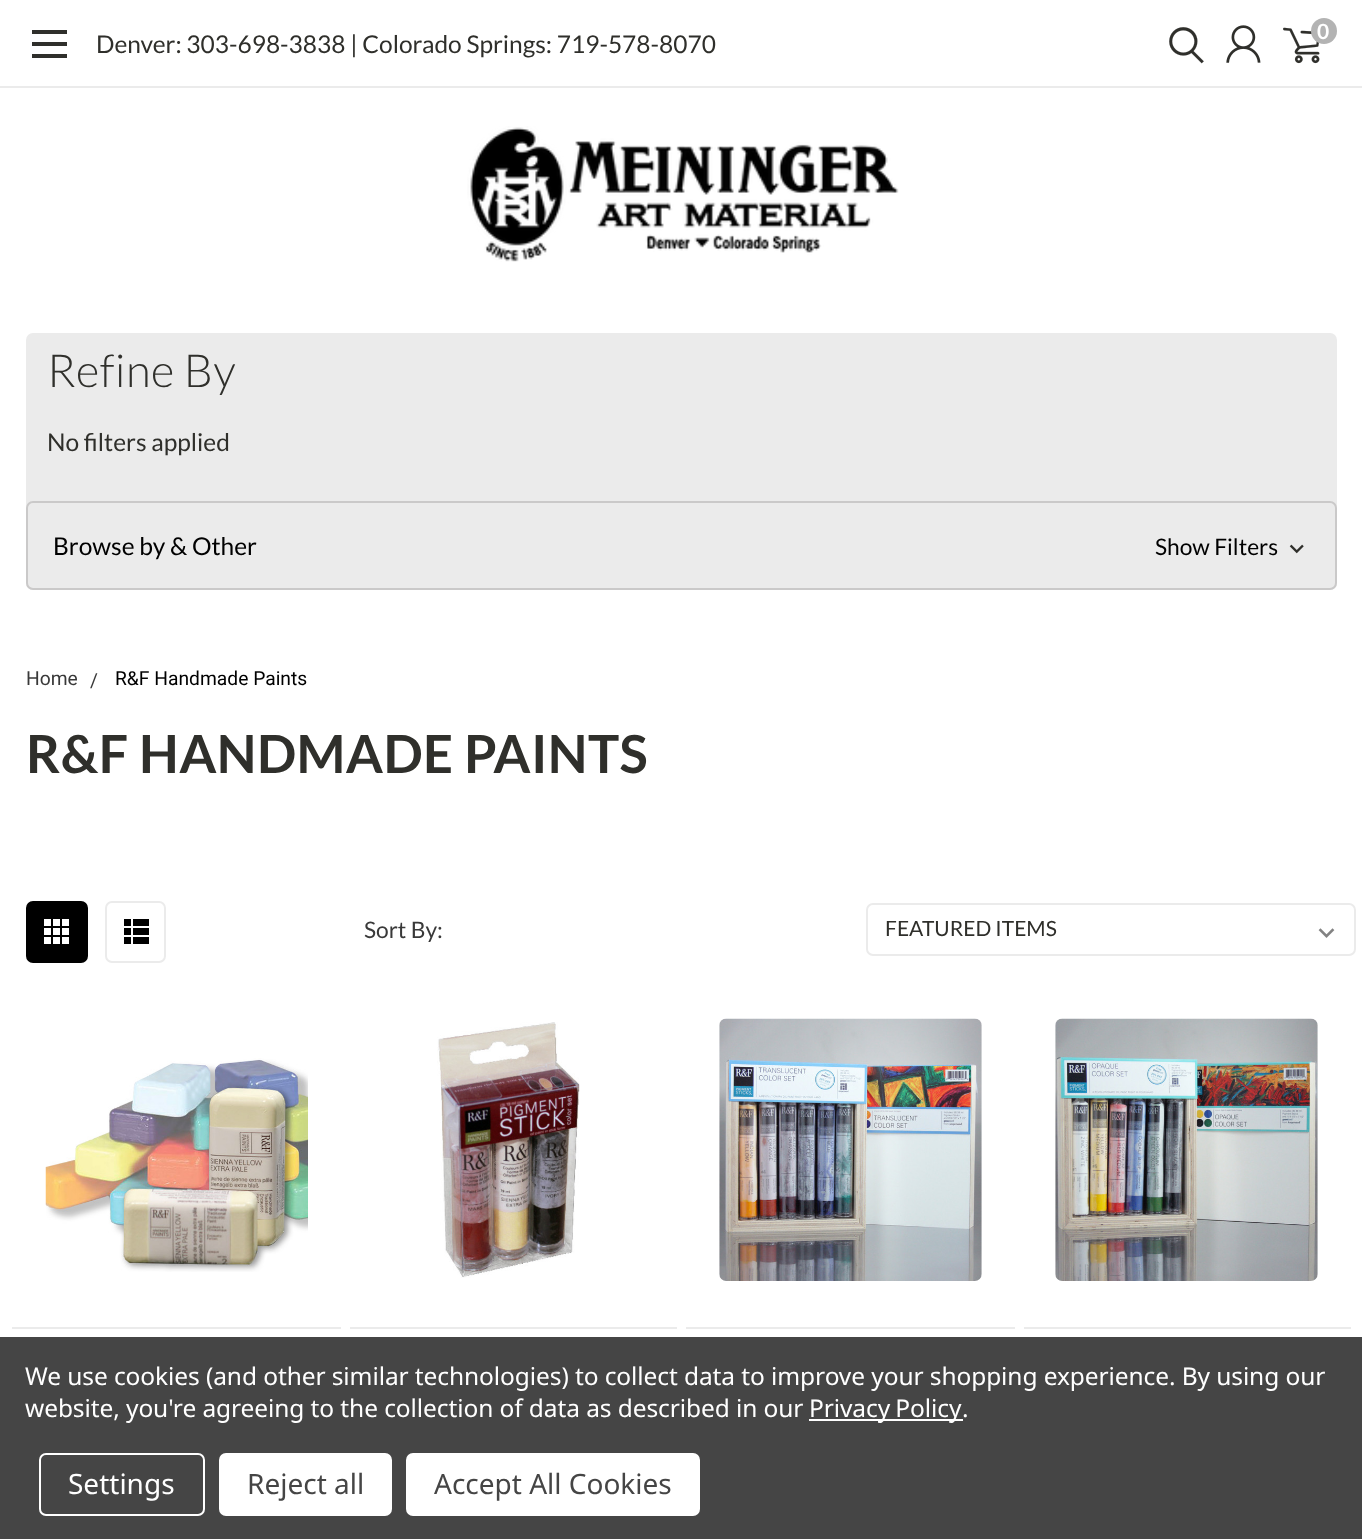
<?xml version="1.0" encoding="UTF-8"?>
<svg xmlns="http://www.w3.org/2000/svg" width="1362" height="1539">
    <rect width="100%" height="100%" fill="#FFFFFF"/>
    <rect x="0" y="86" width="1362" height="2" fill="#EBEBEB"/>
    <rect x="32" y="42" width="35" height="4" fill="#2F2F2B"/>
    <rect x="32" y="30" width="35" height="4" fill="#2F2F2B"/>
    <rect x="32" y="54" width="35" height="4" fill="#2F2F2B"/>
    <text x="96" y="53" font-family="Lato" font-size="24.5" fill="#2F2F2B">Denver: 303-698-3838 | Colorado Springs: 719-578-8070</text>
    <image x="1169" y="27" width="35" height="37" href="img_01.png"/>
    <image x="1226" y="25" width="35" height="38" href="img_02.png"/>
    <image x="1283" y="27" width="37" height="37" href="img_03.png"/>
    <circle cx="1324" cy="31" r="13" fill="#B3B3B3"/>
    <text x="1317" y="39" font-family="Lato" font-size="21" font-weight="700" fill="#FFFFFF">0</text>
    <image x="467" y="126" width="432" height="136" href="img_04.png"/>
    <rect x="26" y="333" width="1311" height="257" rx="7" fill="#EBEBEB"/>
    <text x="47" y="387" font-family="Lato" font-size="45.5" font-weight="300" letter-spacing="0.4" fill="#2F2F2B">Refine By</text>
    <text x="47" y="451" font-family="Lato" font-size="24.5" fill="#2F2F2B">No filters applied</text>
    <rect x="27" y="502" width="1309" height="87" rx="6" fill="none" stroke="#CAC9C9" stroke-width="2"/>
    <text x="53" y="555" font-family="Lato" font-size="24.5" fill="#000000">Browse by &amp; Other</text>
    <text x="1155" y="555" font-family="Lato" font-size="22.75" fill="#000000">Show Filters</text>
    <image x="1289" y="544" width="15" height="10" href="img_05.png"/>
    <text x="26" y="685" font-family="Roboto" font-size="19.25" fill="#393939">Home</text>
    <text x="90" y="687" font-family="Roboto" font-size="19.25" fill="#393939">/</text>
    <text x="115" y="685" font-family="Roboto" font-size="19.25" fill="#000000">R&amp;F Handmade Paints</text>
    <text x="26" y="773" font-family="Lato" font-size="52.5" font-weight="700" letter-spacing="0.4" fill="#2F2F2B">R&amp;F HANDMADE PAINTS</text>
    <rect x="27" y="902" width="60" height="60" rx="6" fill="#000000" stroke="#000000" stroke-width="2"/>
    <image x="44" y="919" width="25" height="25" href="img_06.png"/>
    <rect x="106" y="902" width="59" height="60" rx="6" fill="none" stroke="#EBEBEB" stroke-width="2"/>
    <image x="124" y="919" width="25" height="25" href="img_07.png"/>
    <text x="364" y="938" font-family="Lato" font-size="22.75" fill="#393939">Sort By:</text>
    <image x="1318" y="928" width="17" height="10" href="img_08.png"/>
    <rect x="867" y="904" width="488" height="51" rx="6" fill="none" stroke="#EBEBEB" stroke-width="2"/>
    <text x="885" y="936" font-family="Lato" font-size="21" fill="#2F2F2B">FEATURED ITEMS</text>
    <image x="45" y="1058" width="263" height="214" href="img_09.png"/>
    <rect x="12" y="1327" width="329" height="2" fill="#EBEBEB"/>
    <image x="437" y="1022" width="143" height="256" href="img_10.png"/>
    <rect x="350" y="1327" width="327" height="2" fill="#EBEBEB"/>
    <image x="719" y="1018" width="263" height="263" href="img_11.png"/>
    <rect x="686" y="1327" width="329" height="2" fill="#EBEBEB"/>
    <image x="1055" y="1018" width="263" height="263" href="img_12.png"/>
    <rect x="1024" y="1327" width="327" height="2" fill="#EBEBEB"/>
    <rect x="0" y="1337" width="1362" height="202" fill="#454545"/>
    <text font-family="Noto Sans" font-size="24.5" letter-spacing="-0.09" fill="#FFFFFF">
        <tspan x="25" y="1385">We use cookies (and other similar technologies) to collect data to improve your shopping experience. By using our</tspan>
        <tspan x="25" y="1417">website, you're agreeing to the collection of data as described in our</tspan>
    </text>
    <rect x="809" y="1419" width="154" height="2" fill="#FFFFFF"/>
    <text x="809" y="1417" word-spacing="-1" font-family="Noto Sans" font-size="24.5" letter-spacing="-0.09" fill="#FFFFFF">Privacy Policy</text>
    <text x="962" y="1417" font-family="Noto Sans" font-size="24.5" letter-spacing="-0.09" fill="#FFFFFF">.</text>
    <rect x="40" y="1454" width="164" height="61" rx="6" fill="none" stroke="#FFFFFF" stroke-width="2"/>
    <text x="68" y="1494" font-family="Noto Sans" font-size="28" fill="#FFFFFF">Settings</text>
    <rect x="219" y="1453" width="173" height="63" rx="7" fill="#FFFFFF"/>
    <text x="247" y="1494" font-family="Noto Sans" font-size="28" fill="#454545">Reject all</text>
    <rect x="406" y="1453" width="294" height="63" rx="7" fill="#FFFFFF"/>
    <text x="434" y="1494" font-family="Noto Sans" font-size="28" fill="#454545">Accept All Cookies</text>
</svg>
